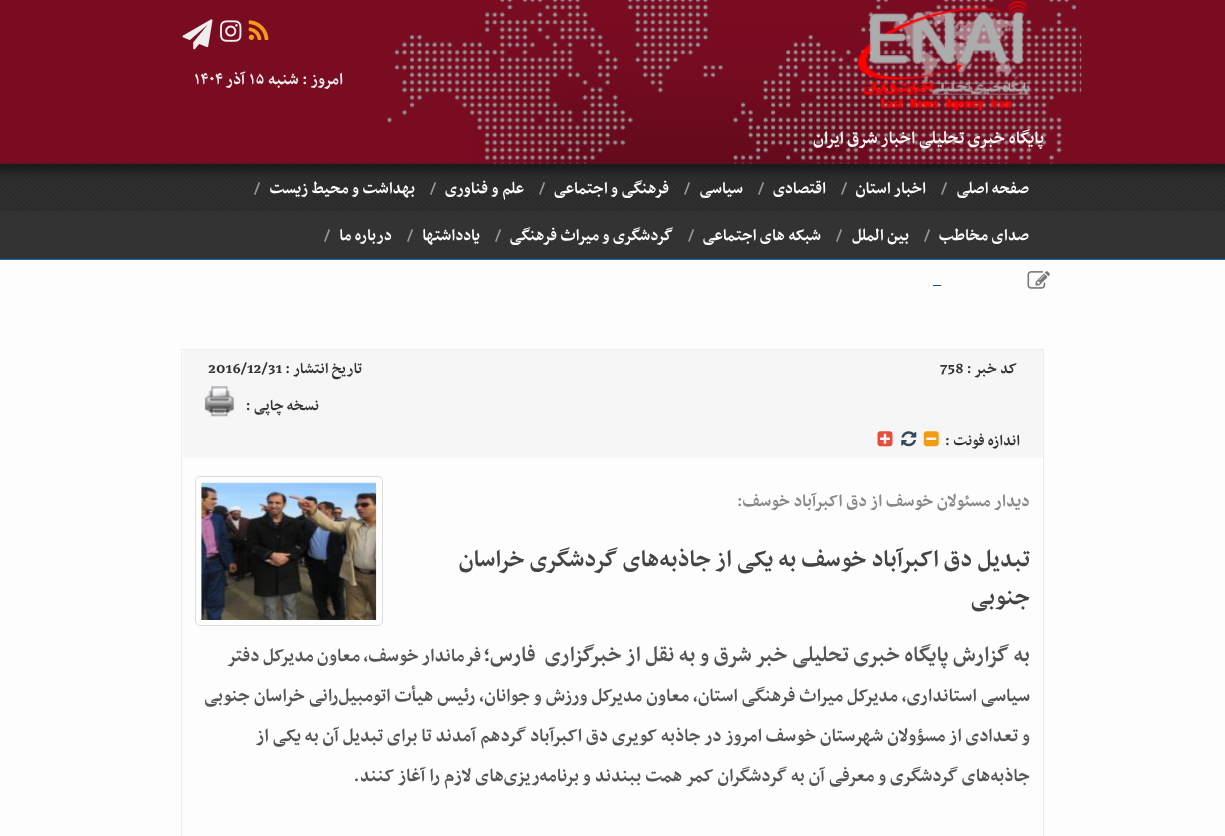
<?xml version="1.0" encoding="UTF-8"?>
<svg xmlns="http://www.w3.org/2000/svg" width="1225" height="836">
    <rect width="100%" height="100%" fill="#FDFDFD"/>
    <rect x="0" y="0" width="1225" height="164" fill="#7A0C22"/>
    <image x="387" y="0" width="695" height="164" href="img_01.png"/>
    <image x="248" y="20" width="21" height="20" href="img_02.png"/>
    <image x="220" y="20" width="22" height="22" href="img_03.png"/>
    <image x="182" y="19" width="31" height="31" href="img_04.png"/>
    <text x="343" y="84" font-family="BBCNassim" font-size="18.75" font-weight="700" direction="rtl" fill="#EEEEEE">امروز : شنبه</text>
    <text x="249" y="84" font-family="BBCNassim" font-size="18.75" font-weight="700" fill="#EEEEEE">۱۵</text>
    <text x="245" y="84" font-family="BBCNassim" font-size="18.75" font-weight="700" direction="rtl" fill="#EEEEEE">آذر</text>
    <text x="194" y="84" font-family="BBCNassim" font-size="18.75" font-weight="700" fill="#EEEEEE">۱۴۰۴</text>
    <image x="857" y="1" width="174" height="109" href="img_05.png"/>
    <text x="1044" y="143" font-family="BBCNassim" font-size="20" font-weight="700" direction="rtl" fill="#F5F5F5">پایگاه خبری تحلیلی اخبار شرق ایران</text>
    <rect x="0" y="211" width="1225" height="48" fill="#333333"/>
    <image x="0" y="163" width="1225" height="48" href="img_06.png"/>
    <rect x="0" y="259" width="1225" height="1" fill="#196EA9"/>
    <text x="1029" y="193" font-family="BBCNassim" font-size="18.75" font-weight="700" direction="rtl" fill="#FFFFFF">صفحه اصلی</text>
    <text x="941" y="193" font-family="BBCNassim" font-size="17.5" font-weight="700" fill="#999999">/</text>
    <text x="926" y="193" font-family="BBCNassim" font-size="18.75" font-weight="700" direction="rtl" fill="#FFFFFF">اخبار استان</text>
    <text x="841" y="193" font-family="BBCNassim" font-size="17.5" font-weight="700" fill="#999999">/</text>
    <text x="826" y="193" font-family="BBCNassim" font-size="18.75" font-weight="700" direction="rtl" fill="#FFFFFF">اقتصادی</text>
    <text x="758" y="193" font-family="BBCNassim" font-size="17.5" font-weight="700" fill="#999999">/</text>
    <text x="743" y="193" font-family="BBCNassim" font-size="18.75" font-weight="700" direction="rtl" fill="#FFFFFF">سیاسی</text>
    <text x="684" y="193" font-family="BBCNassim" font-size="17.5" font-weight="700" fill="#999999">/</text>
    <text x="669" y="193" font-family="BBCNassim" font-size="18.75" font-weight="700" direction="rtl" fill="#FFFFFF">فرهنگی و اجتماعی</text>
    <text x="539" y="193" font-family="BBCNassim" font-size="17.5" font-weight="700" fill="#999999">/</text>
    <text x="524" y="193" font-family="BBCNassim" font-size="18.75" font-weight="700" direction="rtl" fill="#FFFFFF">علم و فناوری</text>
    <text x="430" y="193" font-family="BBCNassim" font-size="17.5" font-weight="700" fill="#999999">/</text>
    <text x="415" y="193" font-family="BBCNassim" font-size="18.75" font-weight="700" direction="rtl" fill="#FFFFFF">بهداشت و محیط زیست</text>
    <text x="254" y="193" font-family="BBCNassim" font-size="17.5" font-weight="700" fill="#999999">/</text>
    <text x="1029" y="240" font-family="BBCNassim" font-size="18.75" font-weight="700" direction="rtl" fill="#FFFFFF">صدای مخاطب</text>
    <text x="924" y="240" font-family="BBCNassim" font-size="17.5" font-weight="700" fill="#999999">/</text>
    <text x="909" y="240" font-family="BBCNassim" font-size="18.75" font-weight="700" direction="rtl" fill="#FFFFFF">بین الملل</text>
    <text x="836" y="240" font-family="BBCNassim" font-size="17.5" font-weight="700" fill="#999999">/</text>
    <text x="821" y="240" font-family="BBCNassim" font-size="18.75" font-weight="700" direction="rtl" fill="#FFFFFF">شبکه های اجتماعی</text>
    <text x="688" y="240" font-family="BBCNassim" font-size="17.5" font-weight="700" fill="#999999">/</text>
    <text x="673" y="240" font-family="BBCNassim" font-size="18.75" font-weight="700" direction="rtl" fill="#FFFFFF">گردشگری و میراث فرهنگی</text>
    <text x="495" y="240" font-family="BBCNassim" font-size="17.5" font-weight="700" fill="#999999">/</text>
    <text x="480" y="240" font-family="BBCNassim" font-size="18.75" font-weight="700" direction="rtl" fill="#FFFFFF">یادداشتها</text>
    <text x="407" y="240" font-family="BBCNassim" font-size="17.5" font-weight="700" fill="#999999">/</text>
    <text x="392" y="240" font-family="BBCNassim" font-size="18.75" font-weight="700" direction="rtl" fill="#FFFFFF">درباره ما</text>
    <text x="324" y="240" font-family="BBCNassim" font-size="17.5" font-weight="700" fill="#999999">/</text>
    <image x="1027" y="271" width="23" height="18" href="img_07.png"/>
    <rect x="933" y="285" width="8" height="1" fill="#1F527B"/>
    <rect x="181.5" y="349.5" width="862" height="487" fill="none" stroke="#EEEEEE"/>
    <rect x="183" y="350" width="860" height="108" fill="#F6F6F6"/>
    <text x="1017" y="373" font-family="BBCNassim" font-size="17.5" font-weight="700" direction="rtl" fill="#333333">کد خبر :</text>
    <text x="940" y="373" font-family="BBCNassim" font-size="17.5" font-weight="700" fill="#333333">758</text>
    <text x="362" y="373" font-family="BBCNassim" font-size="17.5" font-weight="700" direction="rtl" fill="#333333">تاریخ انتشار :</text>
    <text x="208" y="373" font-family="BBCNassim" font-size="17.5" font-weight="700" fill="#333333">2016/12/31</text>
    <text x="319" y="410" font-family="BBCNassim" font-size="17.5" font-weight="700" direction="rtl" fill="#333333">نسخه چاپی :</text>
    <image x="204" y="386" width="30" height="31" href="img_08.png"/>
    <text x="1020" y="445" font-family="BBCNassim" font-size="17.5" font-weight="700" direction="rtl" fill="#333333">اندازه فونت :</text>
    <image x="923" y="431" width="16" height="16" href="img_09.png"/>
    <image x="901" y="431" width="16" height="16" href="img_10.png"/>
    <image x="877" y="431" width="16" height="16" href="img_11.png"/>
    <text x="1030" y="506" font-family="BBCNassim" font-size="20" font-weight="700" direction="rtl" fill="#888888">دیدار مسئولان خوسف از دق اکبرآباد خوسف:</text>
    <rect x="195.5" y="476.5" width="187" height="149" rx="4.5" fill="none" stroke="#DDDDDD"/>
    <image x="201" y="482" width="176" height="138" href="img_12.png"/>
    <text font-family="BBCNassim" font-size="27.5" font-weight="700" direction="rtl" fill="#444444">
        <tspan x="1030" y="566">تبدیل دق اکبرآباد خوسف به یکی از جاذبه‌های گردشگری خراسان</tspan>
        <tspan x="1030" y="604">جنوبی</tspan>
    </text>
    <text x="1030" y="661" font-family="BBCNassim" font-size="25" font-weight="700" direction="rtl" fill="#555555" xml:space="preserve">به گزارش پایگاه خبری تحلیلی خبر شرق و به نقل از خبرگزاری  فارس؛</text>
    <text x="481" y="661" word-spacing="-0.5" font-family="BBCNassim" font-size="21.25" font-weight="700" direction="rtl" fill="#555555">فرماندار خوسف، معاون مدیرکل دفتر</text>
    <text font-family="BBCNassim" font-size="21.25" font-weight="700" direction="rtl" fill="#555555">
        <tspan x="1030" y="701">سیاسی استانداری، مدیرکل میراث فرهنگی استان، معاون مدیرکل ورزش و جوانان، رئیس هیأت اتومبیل‌رانی خراسان جنوبی</tspan>
        <tspan x="1030" y="741">و تعدادی از مسؤولان شهرستان خوسف امروز در جاذبه کویری دق اکبرآباد گردهم آمدند تا برای تبدیل آن به یکی از</tspan>
        <tspan x="1030" y="781">جاذبه‌های گردشگری و معرفی آن به گردشگران کمر همت ببندند و برنامه‌ریزی‌های لازم را آغاز کنند.</tspan>
    </text>
</svg>
